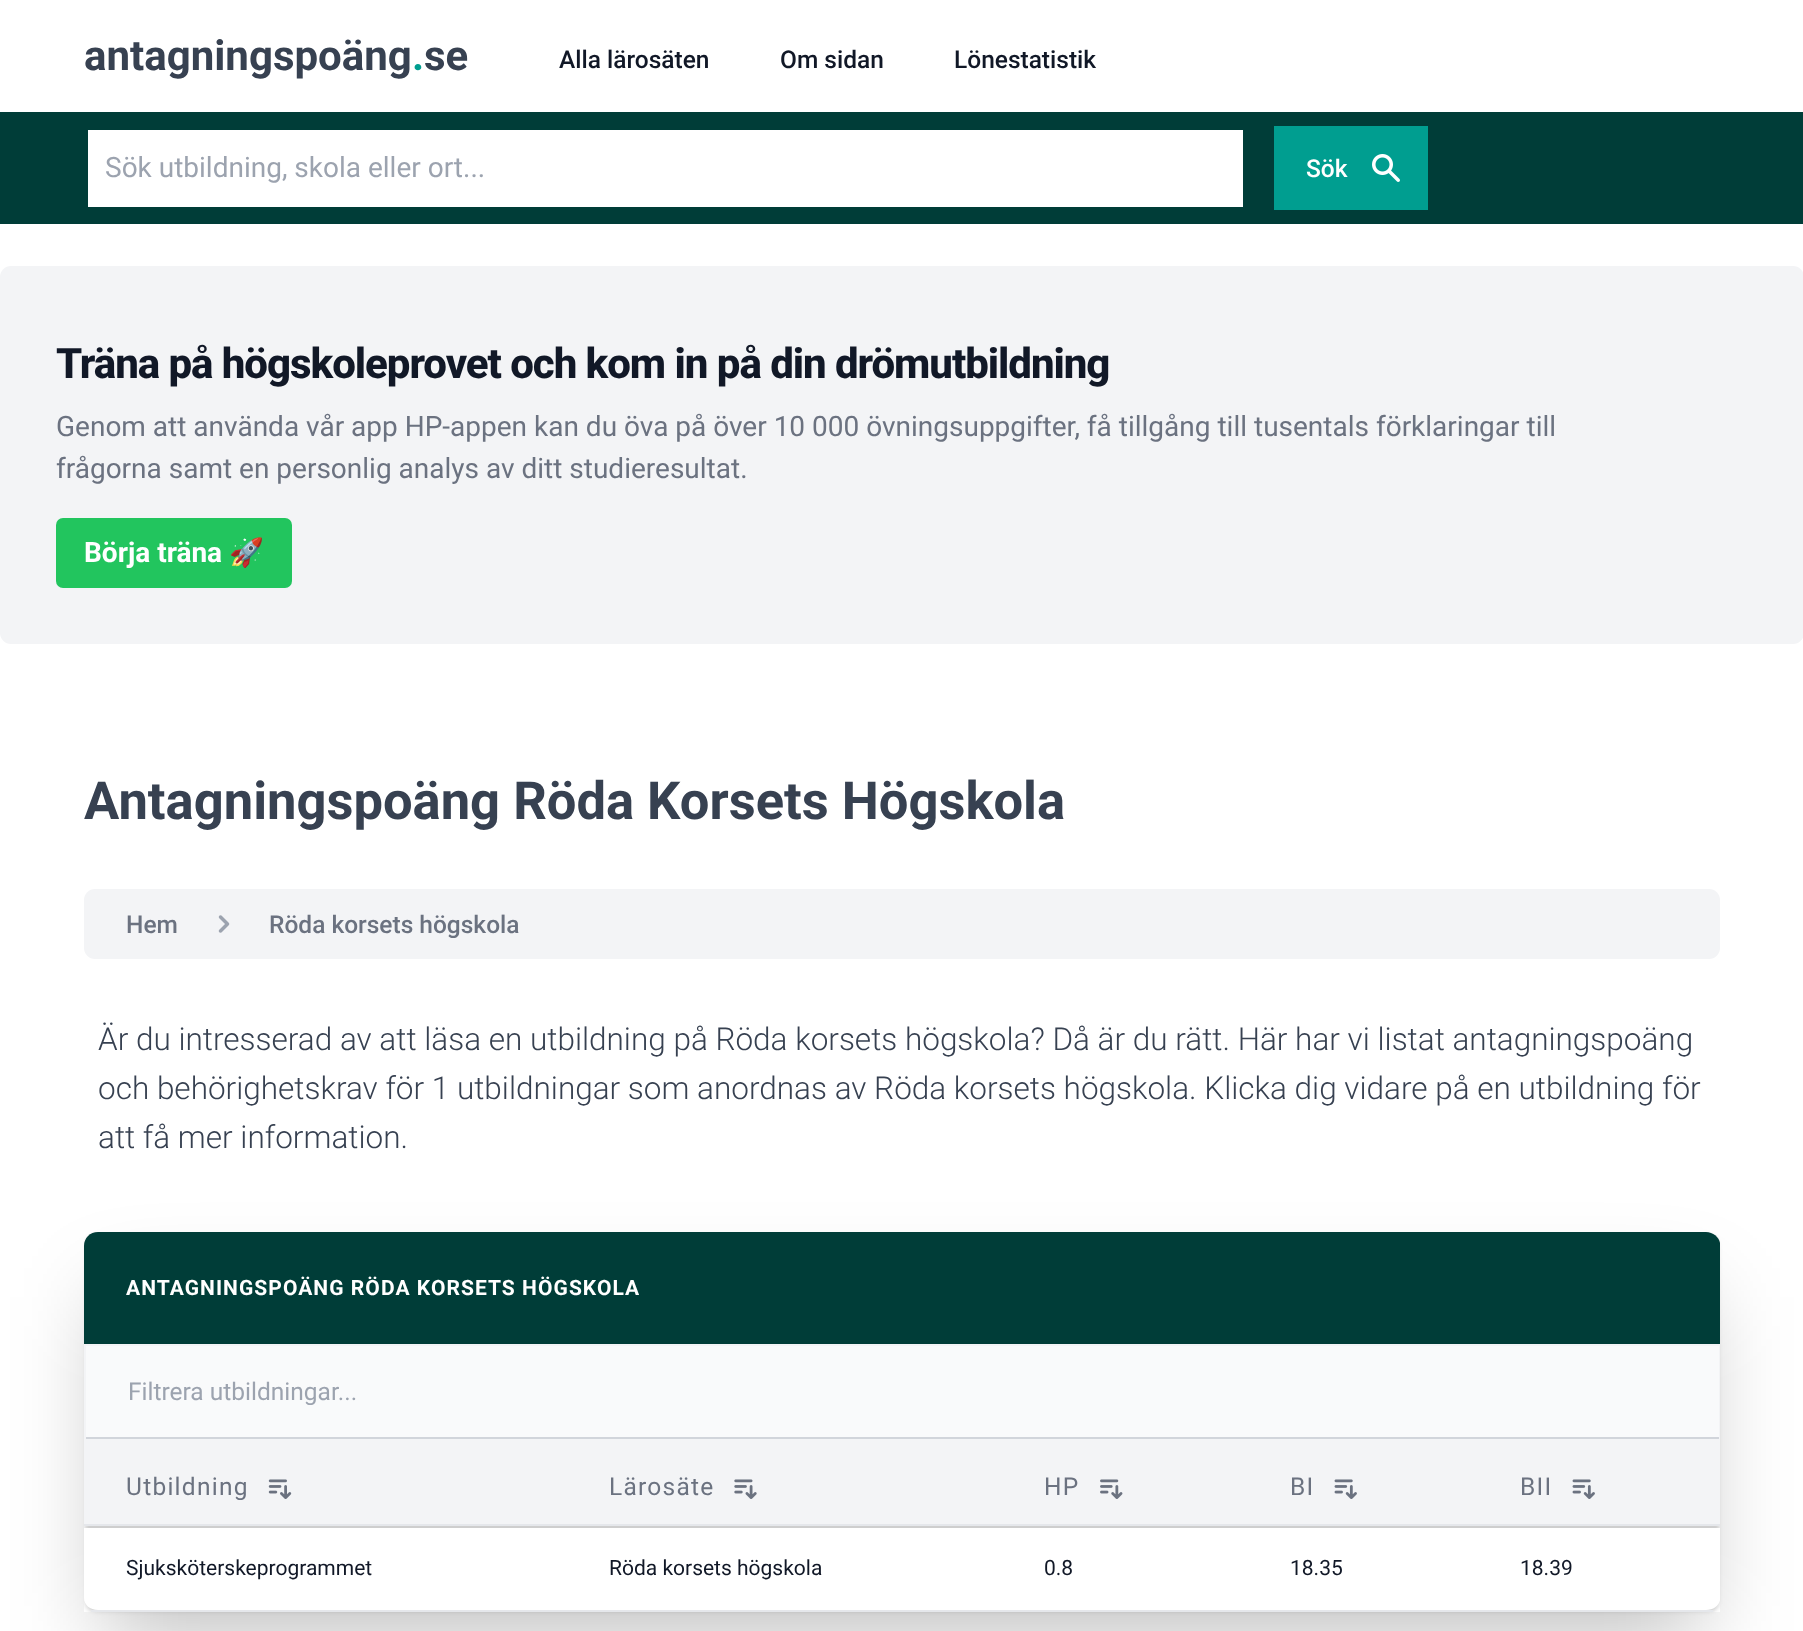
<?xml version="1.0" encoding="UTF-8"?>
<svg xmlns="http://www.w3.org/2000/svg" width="1803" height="1631">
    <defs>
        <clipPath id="clip1"><path d="M 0 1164 H 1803 V 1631 H 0 Z M 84 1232 H 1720 V 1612 H 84 Z" clip-rule="evenodd"/></clipPath>
        <filter id="blur1" x="-50%" y="-200%" width="200%" height="500%"><feGaussianBlur stdDeviation="44"/></filter>
        <filter id="blur2" x="-50%" y="-200%" width="200%" height="500%"><feGaussianBlur stdDeviation="2"/></filter>
        <clipPath id="clip2"><rect x="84" y="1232" width="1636" height="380"/></clipPath>
        <filter id="blur3" x="-50%" y="-200%" width="200%" height="500%"><feGaussianBlur stdDeviation="2.5"/></filter>
    </defs>
    <rect width="100%" height="100%" fill="#FFFFFF"/>
    <text x="84" y="70" font-family="Roboto" font-size="42" font-weight="700" fill="#374151">antagningspoäng</text>
    <text x="412" y="70" font-family="Roboto" font-size="42" font-weight="700" fill="#009E90">.</text>
    <text x="424" y="70" font-family="Roboto" font-size="42" font-weight="700" fill="#374151">se</text>
    <text x="559" y="68" font-family="Roboto" font-size="24.5" font-weight="500" fill="#111827">Alla lärosäten</text>
    <text x="780" y="68" font-family="Roboto" font-size="24.5" font-weight="500" fill="#111827">Om sidan</text>
    <text x="954" y="68" font-family="Roboto" font-size="24.5" font-weight="500" fill="#111827">Lönestatistik</text>
    <rect x="0" y="112" width="1803" height="112" fill="#003D38"/>
    <rect x="88" y="130" width="1155" height="77" fill="#FFFFFF"/>
    <text x="105" y="177" font-family="Roboto" font-size="28" fill="#9CA3AF">Sök utbildning, skola eller ort...</text>
    <rect x="1274" y="126" width="154" height="84" fill="#009E90"/>
    <text x="1306" y="177" font-family="Roboto" font-size="24.5" font-weight="500" fill="#FFFFFF">Sök</text>
    <image x="1372" y="154" width="28" height="28" href="img_01.png"/>
    <rect x="0" y="266" width="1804" height="378" rx="11" fill="#F3F4F6"/>
    <text x="56" y="378" font-family="Roboto" font-size="42" font-weight="800" letter-spacing="-1.05" fill="#111827">Träna på högskoleprovet och kom in på din drömutbildning</text>
    <text font-family="Roboto" font-size="28" fill="#6B7280">
        <tspan x="56" y="436">Genom att använda vår app HP-appen kan du öva på över 10 000 övningsuppgifter, få tillgång till tusentals förklaringar till</tspan>
        <tspan x="56" y="478">frågorna samt en personlig analys av ditt studieresultat.</tspan>
    </text>
    <rect x="56" y="518" width="236" height="70" rx="7" fill="#22C55E"/>
    <text x="84" y="562" font-family="Roboto" font-size="28" font-weight="700" fill="#FFFFFF">Börja träna</text>
    <text x="229" y="562" font-family="Noto Color Emoji" font-size="28" font-weight="700" fill="#FFFFFF">🚀</text>
    <text x="84" y="819" font-family="Roboto" font-size="52.5" font-weight="700" fill="#374151">Antagningspoäng Röda Korsets Högskola</text>
    <rect x="84" y="889" width="1636" height="70" rx="11" fill="#F3F4F6"/>
    <text x="126" y="933" font-family="Roboto" font-size="24.5" font-weight="500" fill="#6B7280">Hem</text>
    <image x="218" y="915" width="12" height="18" href="img_02.png"/>
    <text x="269" y="933" font-family="Roboto" font-size="24.5" font-weight="500" fill="#6B7280">Röda korsets högskola</text>
    <text font-family="Roboto" font-size="31.5" font-weight="300" fill="#374151">
        <tspan x="98" y="1050">Är du intresserad av att läsa en utbildning på Röda korsets högskola? Då är du rätt. Här har vi listat antagningspoäng</tspan>
        <tspan x="98" y="1099">och behörighetskrav för 1 utbildningar som anordnas av Röda korsets högskola. Klicka dig vidare på en utbildning för</tspan>
        <tspan x="98" y="1148">att få mer information.</tspan>
    </text>
    <g clip-path="url(#clip1)">
        <rect x="105" y="1297" width="1594" height="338" fill="#000000" fill-opacity="0.25" filter="url(#blur1)"/>
    </g>
    <rect x="86" y="1236" width="1633" height="376" rx="12" fill="#000000" fill-opacity="0.1" filter="url(#blur2)"/>
    <g clip-path="url(#clip2)">
        <rect x="84" y="1234" width="1636" height="380" rx="14" fill="#000000" fill-opacity="0.1" filter="url(#blur3)"/>
    </g>
    <rect x="91" y="1610" width="1622" height="2" fill="#E5E7EB"/>
    <path d="M 98 1232 C 90 1232 84 1238 84 1246 V 1344 H 1720 V 1243 C 1719 1237 1713 1232 1706 1232 Z" fill="#003D38"/>
    <text x="126" y="1295" font-family="Roboto" font-size="21" font-weight="700" letter-spacing="1.05" fill="#FFFFFF">ANTAGNINGSPOÄNG RÖDA KORSETS HÖGSKOLA</text>
    <rect x="84" y="1344" width="1636" height="180" fill="#F3F4F6"/>
    <rect x="86" y="1437" width="1633" height="2" fill="#D1D5DB"/>
    <rect x="86" y="1346" width="1633" height="91" fill="#F9FAFB"/>
    <text x="128" y="1400" font-family="Roboto" font-size="24.5" fill="#9CA3AF">Filtrera utbildningar...</text>
    <text x="126" y="1495" font-family="Roboto" font-size="24.5" letter-spacing="1.25" fill="#6B7280">Utbildning</text>
    <image x="268" y="1479" width="24" height="20" href="img_03.png"/>
    <text x="609" y="1495" font-family="Roboto" font-size="24.5" letter-spacing="1.25" fill="#6B7280">Lärosäte</text>
    <image x="734" y="1479" width="23" height="20" href="img_04.png"/>
    <text x="1044" y="1495" font-family="Roboto" font-size="24.5" letter-spacing="1.25" fill="#6B7280">HP</text>
    <image x="1100" y="1479" width="23" height="20" href="img_05.png"/>
    <text x="1290" y="1495" font-family="Roboto" font-size="24.5" letter-spacing="1.25" fill="#6B7280">BI</text>
    <image x="1334" y="1479" width="23" height="20" href="img_06.png"/>
    <text x="1520" y="1495" font-family="Roboto" font-size="24.5" letter-spacing="1.25" fill="#6B7280">BII</text>
    <image x="1572" y="1479" width="23" height="20" href="img_06.png"/>
    <path d="M 84 1528 V 1598 C 84 1605 90 1610 98 1610 H 1706 C 1713 1610 1719 1606 1720 1600 V 1528 Z" fill="#FFFFFF"/>
    <rect x="84" y="1524" width="1636" height="2" fill="#E5E7EB"/>
    <text x="126" y="1575" font-family="Roboto" font-size="21" fill="#111827">Sjuksköterskeprogrammet</text>
    <text x="609" y="1575" font-family="Roboto" font-size="21" fill="#111827">Röda korsets högskola</text>
    <text x="1044" y="1575" font-family="Roboto" font-size="21" fill="#111827">0.8</text>
    <text x="1290" y="1575" font-family="Roboto" font-size="21" fill="#111827">18.35</text>
    <text x="1520" y="1575" font-family="Roboto" font-size="21" fill="#111827">18.39</text>
</svg>
